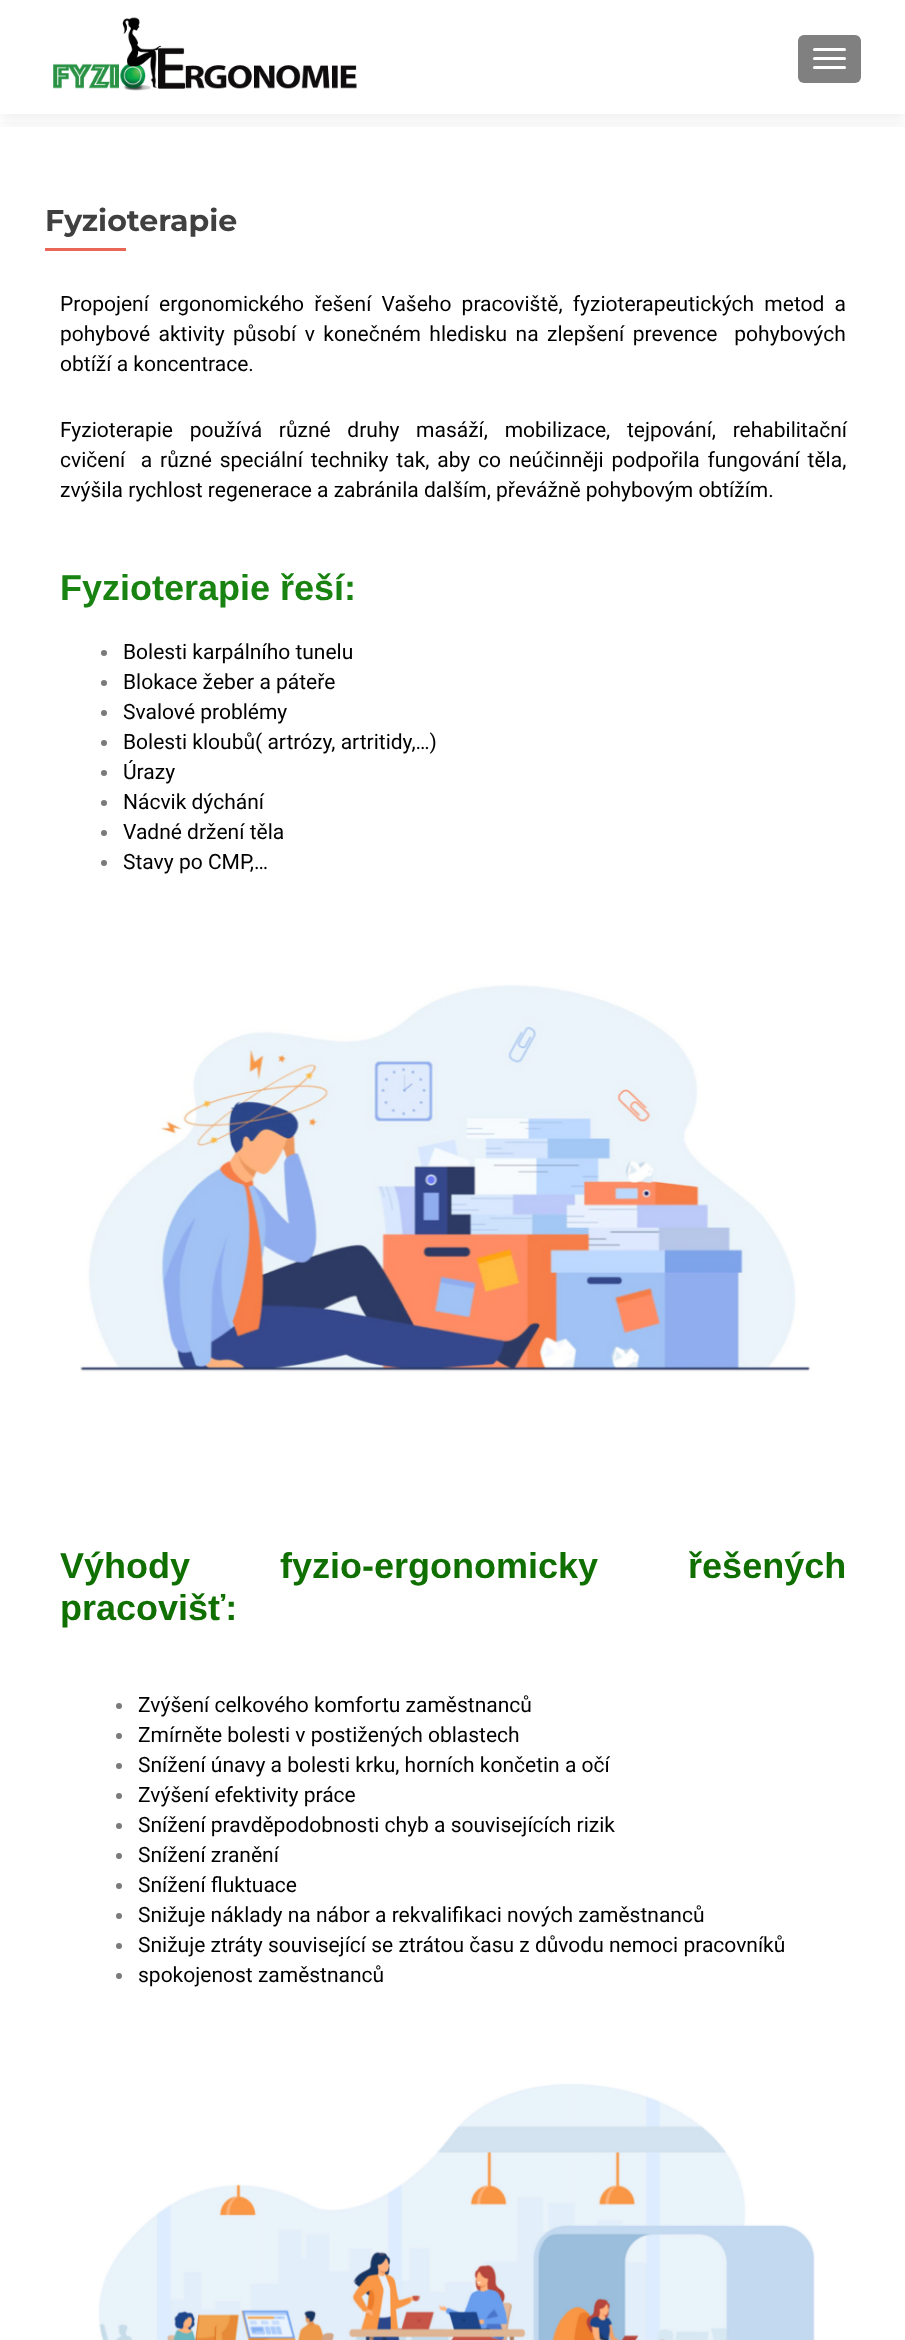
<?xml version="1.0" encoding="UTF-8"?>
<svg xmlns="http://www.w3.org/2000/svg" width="905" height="2340">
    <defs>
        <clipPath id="clip1"><rect x="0" y="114" width="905" height="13"/></clipPath>
        <filter id="blur1" x="-50%" y="-200%" width="200%" height="500%"><feGaussianBlur stdDeviation="8"/></filter>
    </defs>
    <rect width="100%" height="100%" fill="#FFFFFF"/>
    <g clip-path="url(#clip1)">
        <rect x="0" y="8" width="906" height="114" fill="#323232" fill-opacity="0.08" filter="url(#blur1)"/>
    </g>
    <image x="53" y="17" width="304" height="74" href="img_01.png"/>
    <rect x="798" y="35" width="63" height="48" rx="6" fill="#808080"/>
    <rect x="813" y="48" width="33" height="3" rx="1.5" fill="#FFFFFF"/>
    <rect x="813" y="57" width="33" height="3" rx="1.5" fill="#FFFFFF"/>
    <rect x="813" y="66" width="33" height="3" rx="1.5" fill="#FFFFFF"/>
    <text x="45" y="231" font-family="Montserrat" font-size="30" font-weight="700" fill="#404040">Fyzioterapie</text>
    <rect x="45" y="248" width="81" height="3" fill="#E96656"/>
    <text font-family="Roboto" font-size="21" fill="#000000" xml:space="preserve"><tspan x="60" y="311" word-spacing="5">Propojení ergonomického řešení Vašeho pracoviště, fyzioterapeutických metod a</tspan><tspan x="60" y="341" word-spacing="3.25">pohybové aktivity působí v konečném hledisku na zlepšení prevence  pohybových</tspan><tspan x="60" y="371">obtíží a koncentrace.</tspan></text>
    <text font-family="Roboto" font-size="21" fill="#000000" xml:space="preserve"><tspan x="60" y="437" word-spacing="11.5">Fyzioterapie používá různé druhy masáží, mobilizace, tejpování, rehabilitační</tspan><tspan x="60" y="467" word-spacing="2.6">cvičení  a různé speciální techniky tak, aby co neúčinněji podpořila fungování těla,</tspan><tspan x="60" y="497">zvýšila rychlost regenerace a zabránila dalším, převážně pohybovým obtížím.</tspan></text>
    <text x="60" y="600" font-family="Liberation Sans" font-size="36" font-weight="700" fill="#188311">Fyzioterapie řeší:</text>
    <circle cx="104" cy="653" r="3" fill="#7A7A7A"/>
    <text x="123" y="659" font-family="Roboto" font-size="21" fill="#000000">Bolesti karpálního tunelu</text>
    <circle cx="104" cy="683" r="3" fill="#7A7A7A"/>
    <text x="123" y="689" font-family="Roboto" font-size="21" fill="#000000">Blokace žeber a páteře</text>
    <circle cx="104" cy="713" r="3" fill="#7A7A7A"/>
    <text x="123" y="719" font-family="Roboto" font-size="21" fill="#000000">Svalové problémy</text>
    <circle cx="104" cy="743" r="3" fill="#7A7A7A"/>
    <text x="123" y="749" font-family="Roboto" font-size="21" fill="#000000">Bolesti kloubů( artrózy, artritidy,…)</text>
    <circle cx="104" cy="773" r="3" fill="#7A7A7A"/>
    <text x="123" y="779" font-family="Roboto" font-size="21" fill="#000000">Úrazy</text>
    <circle cx="104" cy="803" r="3" fill="#7A7A7A"/>
    <text x="123" y="809" font-family="Roboto" font-size="21" fill="#000000">Nácvik dýchání</text>
    <circle cx="104" cy="833" r="3" fill="#7A7A7A"/>
    <text x="123" y="839" font-family="Roboto" font-size="21" fill="#000000">Vadné držení těla</text>
    <circle cx="104" cy="863" r="3" fill="#7A7A7A"/>
    <text x="123" y="869" font-family="Roboto" font-size="21" fill="#000000">Stavy po CMP,…</text>
    <image x="80" y="984" width="731" height="388" href="img_02.png"/>
    <text font-family="Liberation Sans" font-size="36" font-weight="700" fill="#0F7001">
        <tspan x="60" y="1578" word-spacing="80">Výhody fyzio-ergonomicky řešených</tspan>
        <tspan x="60" y="1620">pracovišť:</tspan>
    </text>
    <circle cx="119" cy="1706" r="3" fill="#7A7A7A"/>
    <text x="138" y="1712" font-family="Roboto" font-size="21" fill="#000000">Zvýšení celkového komfortu zaměstnanců</text>
    <circle cx="119" cy="1736" r="3" fill="#7A7A7A"/>
    <text x="138" y="1742" font-family="Roboto" font-size="21" fill="#000000">Zmírněte bolesti v postižených oblastech</text>
    <circle cx="119" cy="1766" r="3" fill="#7A7A7A"/>
    <text x="138" y="1772" font-family="Roboto" font-size="21" fill="#000000">Snížení únavy a bolesti krku, horních končetin a očí</text>
    <circle cx="119" cy="1796" r="3" fill="#7A7A7A"/>
    <text x="138" y="1802" font-family="Roboto" font-size="21" fill="#000000">Zvýšení efektivity práce</text>
    <circle cx="119" cy="1826" r="3" fill="#7A7A7A"/>
    <text x="138" y="1832" font-family="Roboto" font-size="21" fill="#000000">Snížení pravděpodobnosti chyb a souvisejících rizik</text>
    <circle cx="119" cy="1856" r="3" fill="#7A7A7A"/>
    <text x="138" y="1862" font-family="Roboto" font-size="21" fill="#000000">Snížení zranění</text>
    <circle cx="119" cy="1886" r="3" fill="#7A7A7A"/>
    <text x="138" y="1892" font-family="Roboto" font-size="21" fill="#000000">Snížení fluktuace</text>
    <circle cx="119" cy="1916" r="3" fill="#7A7A7A"/>
    <text x="138" y="1922" font-family="Roboto" font-size="21" fill="#000000">Snižuje náklady na nábor a rekvalifikaci nových zaměstnanců</text>
    <circle cx="119" cy="1946" r="3" fill="#7A7A7A"/>
    <text x="138" y="1952" font-family="Roboto" font-size="21" fill="#000000">Snižuje ztráty související se ztrátou času z důvodu nemoci pracovníků</text>
    <circle cx="119" cy="1976" r="3" fill="#7A7A7A"/>
    <text x="138" y="1982" font-family="Roboto" font-size="21" fill="#000000">spokojenost zaměstnanců</text>
    <image x="98" y="2083" width="717" height="257" href="img_03.png"/>
</svg>
